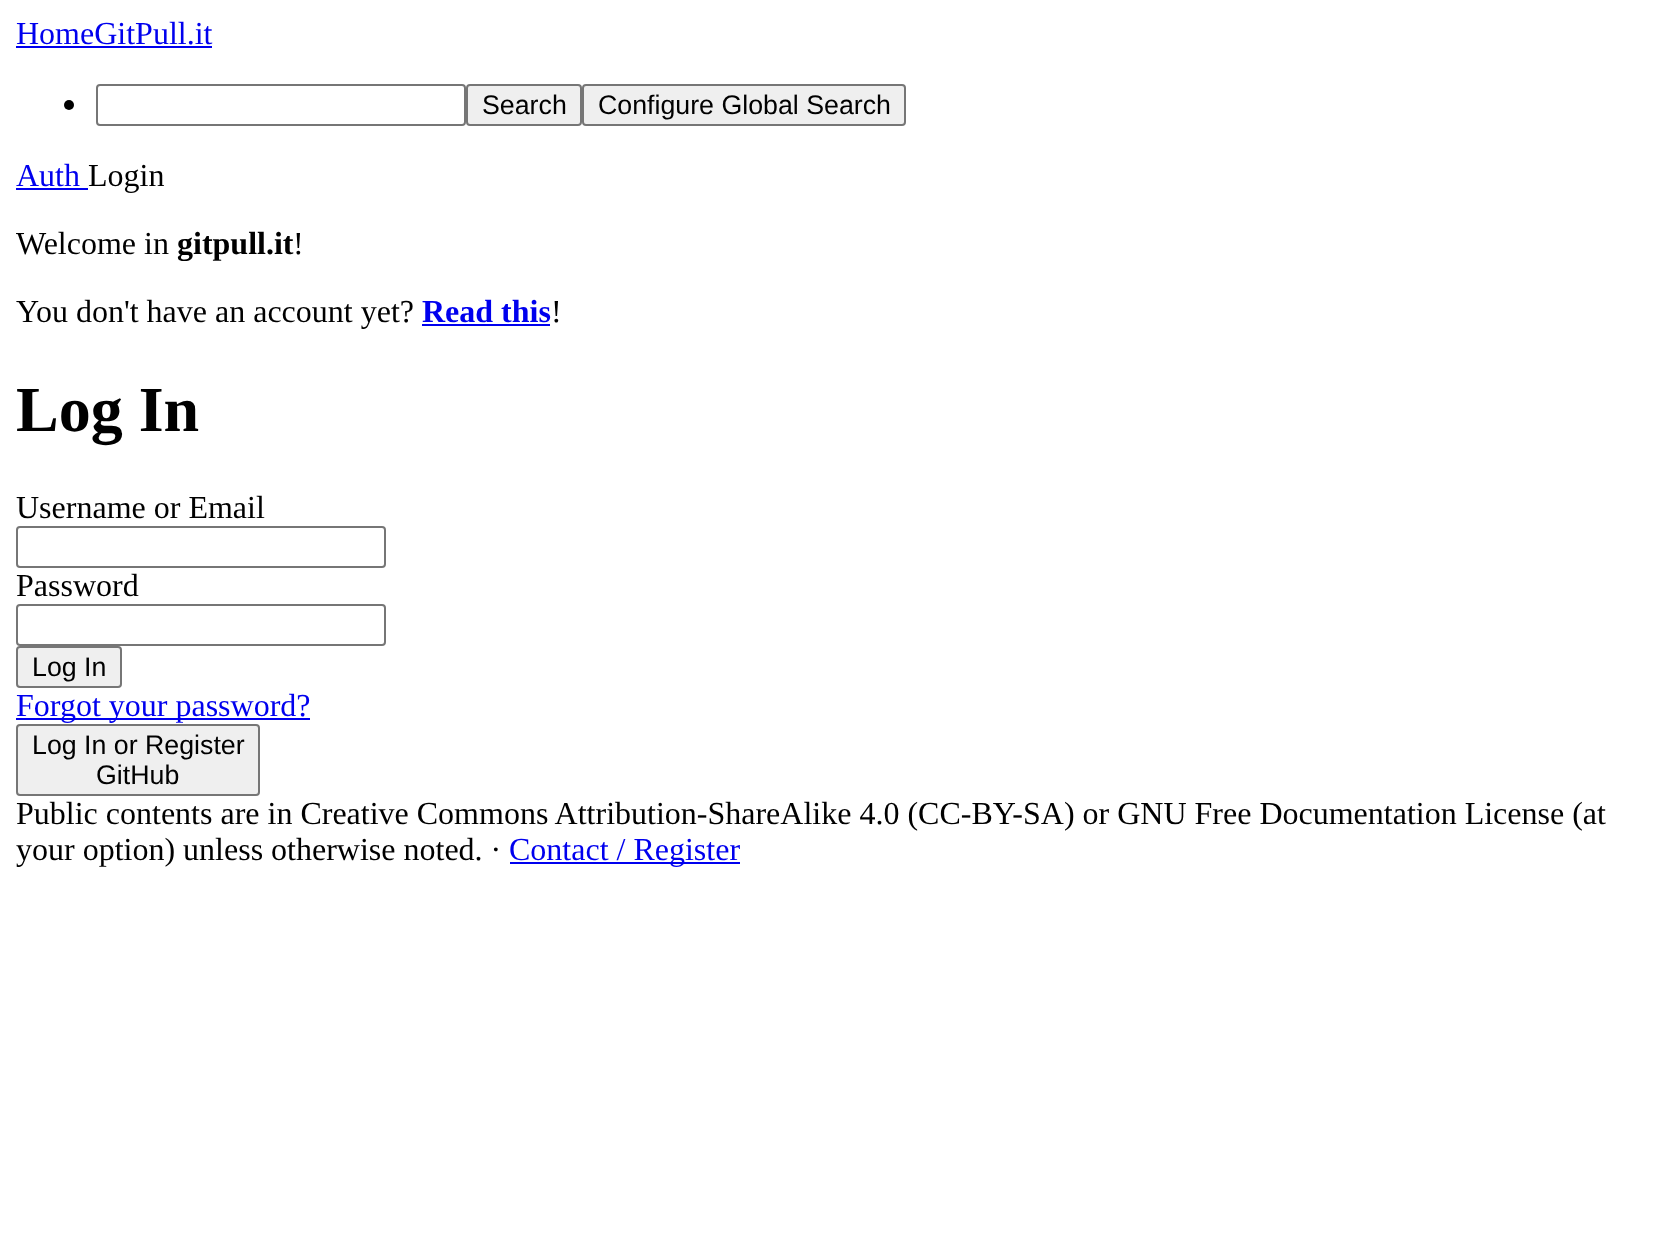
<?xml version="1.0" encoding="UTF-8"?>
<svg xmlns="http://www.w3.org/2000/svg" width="1664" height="1257">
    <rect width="100%" height="100%" fill="#FFFFFF"/>
    <text x="16" y="44" font-family="Liberation Serif" font-size="32" fill="#0000EE">HomeGitPull.it</text>
    <rect x="16" y="46" width="196" height="2" fill="#0000EE"/>
    <circle cx="69" cy="105" r="5" fill="#000000"/>
    <rect x="97" y="85" width="368" height="40" rx="3" fill="none" stroke="#767676" stroke-width="2"/>
    <rect x="467" y="85" width="114" height="40" rx="3" fill="#EFEFEF" stroke="#767676" stroke-width="2"/>
    <text x="482" y="114" font-family="Liberation Sans" font-size="26.75" fill="#000000">Search</text>
    <rect x="583" y="85" width="322" height="40" rx="3" fill="#EFEFEF" stroke="#767676" stroke-width="2"/>
    <text x="598" y="114" font-family="Liberation Sans" font-size="26.75" fill="#000000">Configure Global Search</text>
    <text x="16" y="186" font-family="Liberation Serif" font-size="32" fill="#0000EE">Auth</text>
    <rect x="16" y="188" width="72" height="2" fill="#0000EE"/>
    <text x="88" y="186" font-family="Liberation Serif" font-size="32" fill="#000000">Login</text>
    <text x="16" y="254" font-family="Liberation Serif" font-size="32" fill="#000000">Welcome in</text>
    <text x="177" y="254" font-family="Liberation Serif" font-size="32" font-weight="700" fill="#000000">gitpull.it</text>
    <text x="293" y="254" font-family="Liberation Serif" font-size="32" fill="#000000">!</text>
    <text x="16" y="322" font-family="Liberation Serif" font-size="32" fill="#000000">You don't have an account yet?</text>
    <text x="422" y="322" font-family="Liberation Serif" font-size="32" font-weight="700" fill="#0000EE">Read this</text>
    <rect x="422" y="324" width="128" height="2" fill="#0000EE"/>
    <text x="551" y="322" font-family="Liberation Serif" font-size="32" fill="#000000">!</text>
    <text x="16" y="431" font-family="Liberation Serif" font-size="64" font-weight="700" fill="#000000">Log In</text>
    <text x="16" y="518" font-family="Liberation Serif" font-size="32" fill="#000000">Username or Email</text>
    <rect x="17" y="527" width="368" height="40" rx="3" fill="none" stroke="#767676" stroke-width="2"/>
    <text x="16" y="596" font-family="Liberation Serif" font-size="32" fill="#000000">Password</text>
    <rect x="17" y="605" width="368" height="40" rx="3" fill="none" stroke="#767676" stroke-width="2"/>
    <rect x="17" y="647" width="104" height="40" rx="3" fill="#EFEFEF" stroke="#767676" stroke-width="2"/>
    <text x="32" y="676" font-family="Liberation Sans" font-size="26.75" fill="#000000">Log In</text>
    <rect x="16" y="718" width="294" height="2" fill="#0000EE"/>
    <text x="16" y="716" font-family="Liberation Serif" font-size="32" fill="#0000EE">Forgot your password?</text>
    <rect x="17" y="725" width="242" height="70" rx="3" fill="#EFEFEF" stroke="#767676" stroke-width="2"/>
    <text x="32" y="754" font-family="Liberation Sans" font-size="26.75" fill="#000000">Log In or Register</text>
    <text x="96" y="784" font-family="Liberation Sans" font-size="26.75" fill="#000000">GitHub</text>
    <text font-family="Liberation Serif" font-size="32" fill="#000000">
        <tspan x="16" y="824">Public contents are in Creative Commons Attribution-ShareAlike 4.0 (CC-BY-SA) or GNU Free Documentation License (at</tspan>
        <tspan x="16" y="860">your option) unless otherwise noted. ·</tspan>
    </text>
    <rect x="510" y="862" width="230" height="2" fill="#0000EE"/>
    <text x="509" y="860" font-family="Liberation Serif" font-size="32" fill="#0000EE">Contact / Register</text>
</svg>
